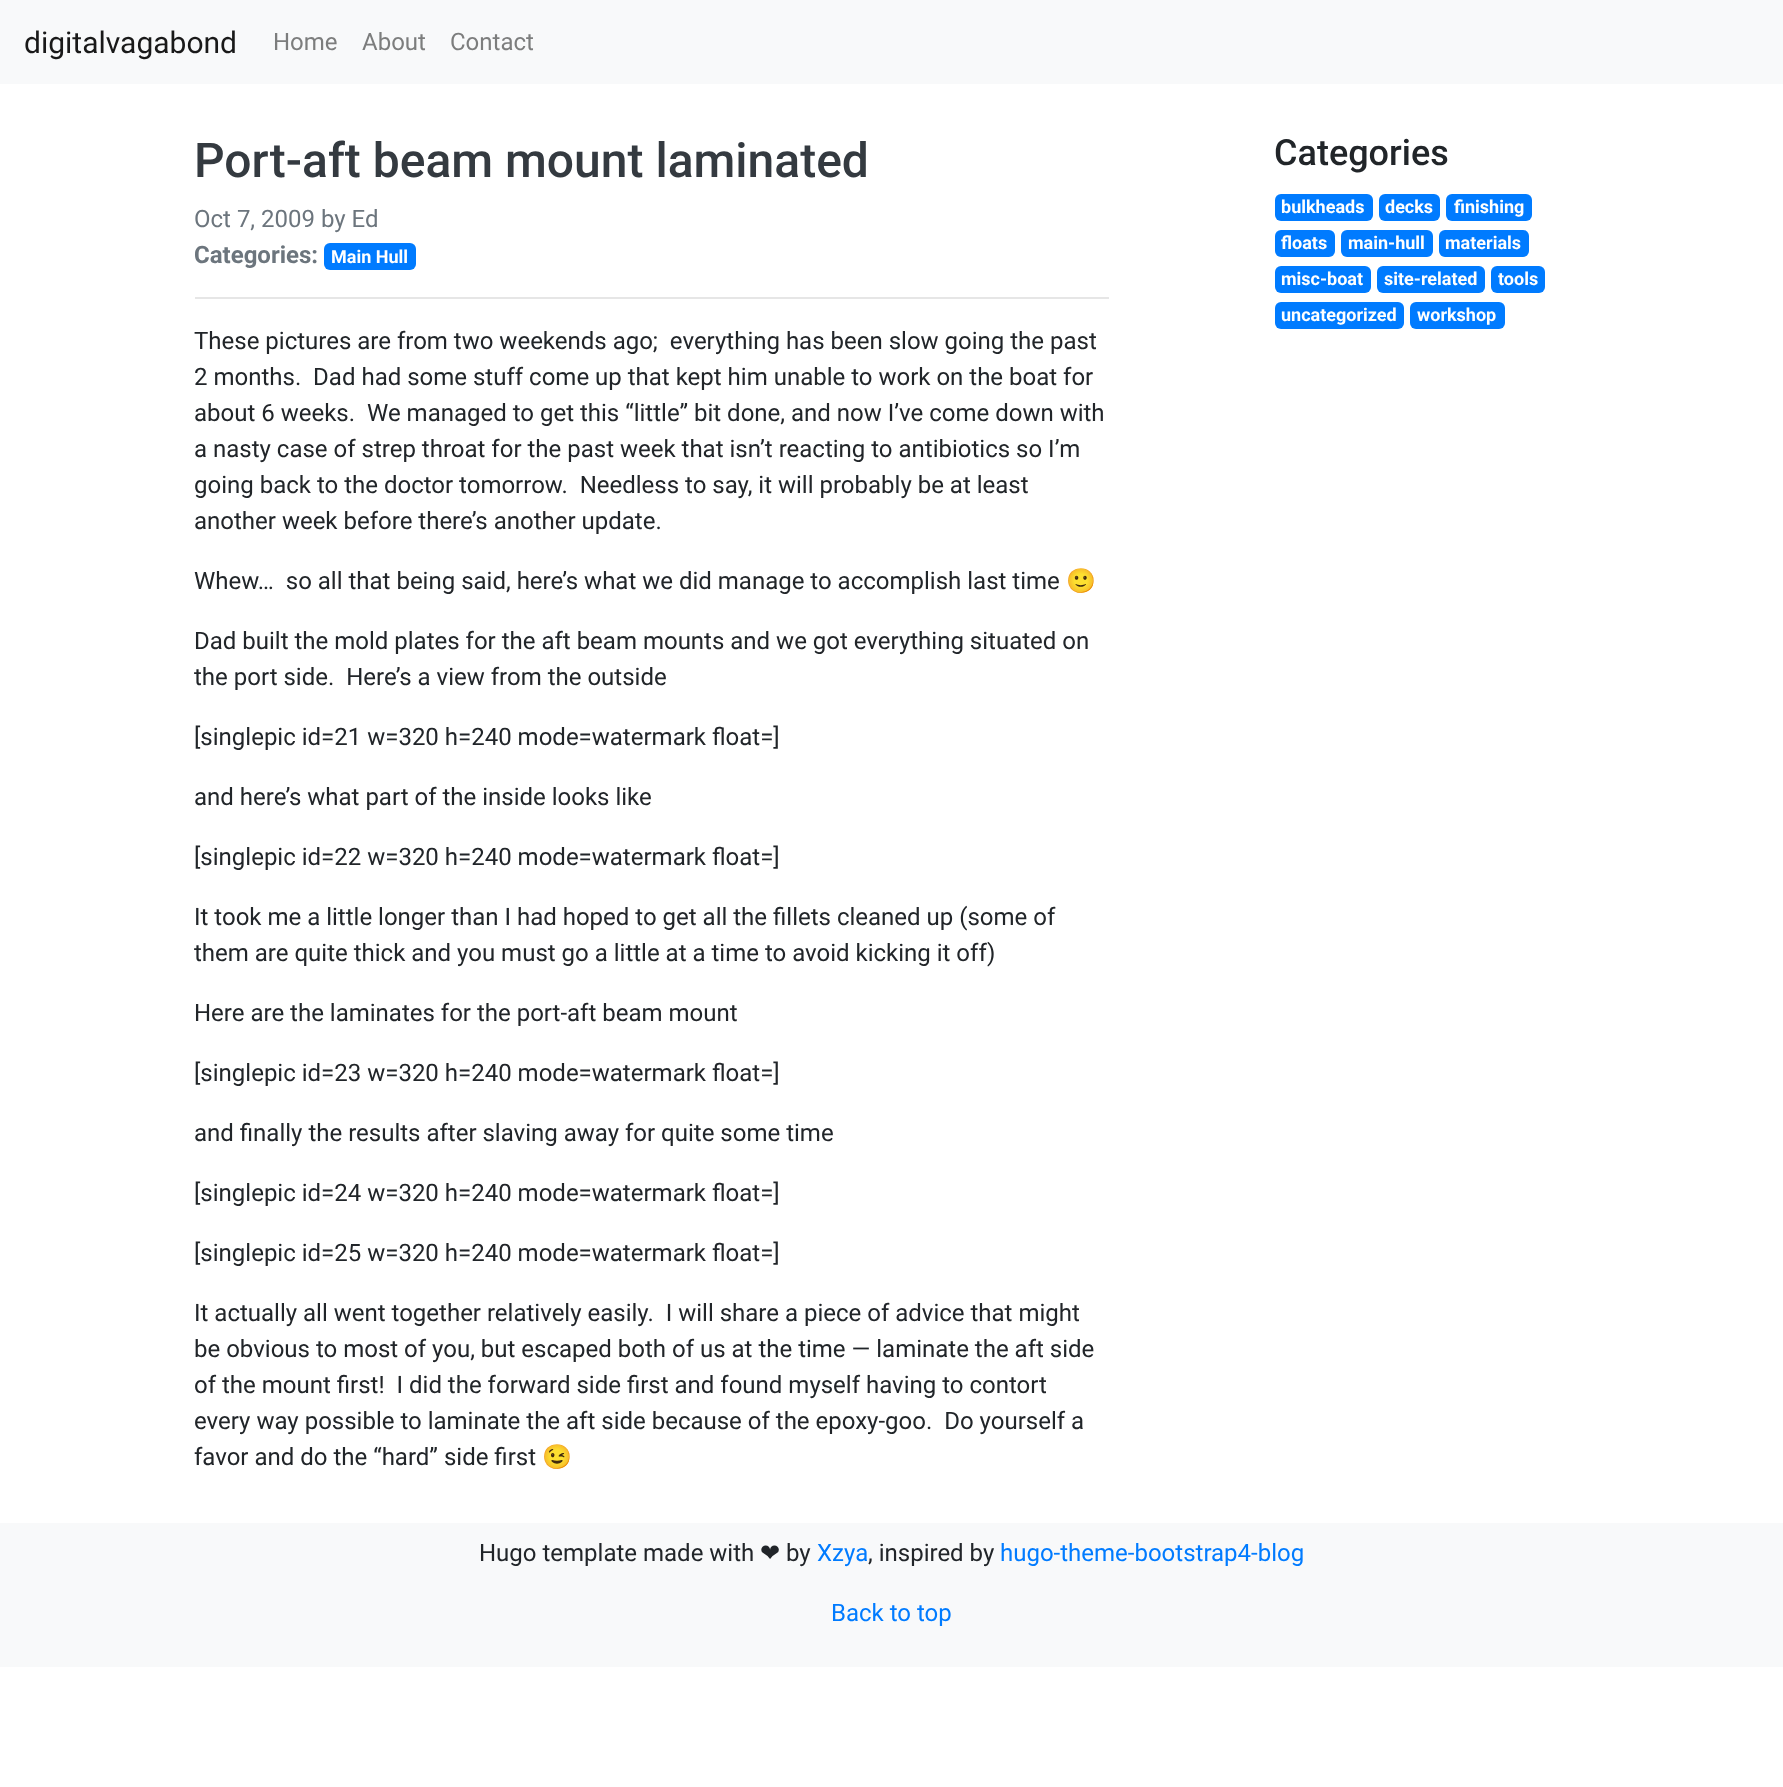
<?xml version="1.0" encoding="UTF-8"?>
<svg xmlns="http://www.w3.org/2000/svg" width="1783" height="1787">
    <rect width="100%" height="100%" fill="#FFFFFF"/>
    <rect x="0" y="0" width="1783" height="84" fill="#F8F9FA"/>
    <text x="24" y="53" font-family="Roboto" font-size="30" fill="#191919">digitalvagabond</text>
    <text x="273" y="50" font-family="Roboto" font-size="24" fill="#7C7D7D">Home</text>
    <text x="362" y="50" font-family="Roboto" font-size="24" fill="#7C7D7D">About</text>
    <text x="450" y="50" font-family="Roboto" font-size="24" fill="#7C7D7D">Contact</text>
    <text x="194" y="177" font-family="Roboto" font-size="48" font-weight="500" fill="#343A40">Port-aft beam mount laminated</text>
    <text x="194" y="227" font-family="Roboto" font-size="24" fill="#6C757D">Oct 7, 2009 by Ed</text>
    <text x="194" y="263" font-family="Roboto" font-size="24" font-weight="700" fill="#6C757D">Categories:</text>
    <rect x="324" y="243" width="92" height="27" rx="6" fill="#007BFF"/>
    <text x="331" y="263" font-family="Roboto" font-size="18" font-weight="700" fill="#FFFFFF">Main Hull</text>
    <rect x="195" y="297" width="914" height="2" fill="#E6E6E6"/>
    <text font-family="Roboto" font-size="24" fill="#212529" xml:space="preserve"><tspan x="194" y="349">These pictures are from two weekends ago;  everything has been slow going the past</tspan><tspan x="194" y="385">2 months.  Dad had some stuff come up that kept him unable to work on the boat for</tspan><tspan x="194" y="421">about 6 weeks.  We managed to get this “little” bit done, and now I’ve come down with</tspan><tspan x="194" y="457">a nasty case of strep throat for the past week that isn’t reacting to antibiotics so I’m</tspan><tspan x="194" y="493">going back to the doctor tomorrow.  Needless to say, it will probably be at least</tspan><tspan x="194" y="529">another week before there’s another update.</tspan></text>
    <text x="194" y="589" font-family="Roboto" font-size="24" fill="#212529" xml:space="preserve">Whew…  so all that being said, here’s what we did manage to accomplish last time</text>
    <text x="1066" y="589" font-family="Noto Color Emoji" font-size="24" fill="#212529">🙂</text>
    <text font-family="Roboto" font-size="24" fill="#212529" xml:space="preserve"><tspan x="194" y="649">Dad built the mold plates for the aft beam mounts and we got everything situated on</tspan><tspan x="194" y="685">the port side.  Here’s a view from the outside</tspan></text>
    <text x="194" y="745" font-family="Roboto" font-size="24" fill="#212529">[singlepic id=21 w=320 h=240 mode=watermark float=]</text>
    <text x="194" y="805" font-family="Roboto" font-size="24" fill="#212529">and here’s what part of the inside looks like</text>
    <text x="194" y="865" font-family="Roboto" font-size="24" fill="#212529">[singlepic id=22 w=320 h=240 mode=watermark float=]</text>
    <text font-family="Roboto" font-size="24" fill="#212529">
        <tspan x="194" y="925">It took me a little longer than I had hoped to get all the fillets cleaned up (some of</tspan>
        <tspan x="194" y="961">them are quite thick and you must go a little at a time to avoid kicking it off)</tspan>
    </text>
    <text x="194" y="1021" font-family="Roboto" font-size="24" fill="#212529">Here are the laminates for the port-aft beam mount</text>
    <text x="194" y="1081" font-family="Roboto" font-size="24" fill="#212529">[singlepic id=23 w=320 h=240 mode=watermark float=]</text>
    <text x="194" y="1141" font-family="Roboto" font-size="24" fill="#212529">and finally the results after slaving away for quite some time</text>
    <text x="194" y="1201" font-family="Roboto" font-size="24" fill="#212529">[singlepic id=24 w=320 h=240 mode=watermark float=]</text>
    <text x="194" y="1261" font-family="Roboto" font-size="24" fill="#212529">[singlepic id=25 w=320 h=240 mode=watermark float=]</text>
    <text font-family="Roboto" font-size="24" fill="#212529" xml:space="preserve"><tspan x="194" y="1321">It actually all went together relatively easily.  I will share a piece of advice that might</tspan><tspan x="194" y="1357">be obvious to most of you, but escaped both of us at the time — laminate the aft side</tspan><tspan x="194" y="1393">of the mount first!  I did the forward side first and found myself having to contort</tspan><tspan x="194" y="1429">every way possible to laminate the aft side because of the epoxy-goo.  Do yourself a</tspan><tspan x="194" y="1465">favor and do the “hard” side first</tspan></text>
    <text x="542" y="1465" font-family="Noto Color Emoji" font-size="24" fill="#212529">😉</text>
    <text x="1274" y="165" font-family="Roboto" font-size="36" font-weight="500" fill="#212529">Categories</text>
    <rect x="1275" y="194" width="98" height="27" rx="6" fill="#007BFF"/>
    <text x="1281" y="213" font-family="Roboto" font-size="18" font-weight="700" fill="#FFFFFF">bulkheads</text>
    <rect x="1379" y="194" width="61" height="27" rx="6" fill="#007BFF"/>
    <text x="1385" y="213" font-family="Roboto" font-size="18" font-weight="700" fill="#FFFFFF">decks</text>
    <rect x="1446" y="194" width="86" height="27" rx="6" fill="#007BFF"/>
    <text x="1454" y="213" font-family="Roboto" font-size="18" font-weight="700" fill="#FFFFFF">finishing</text>
    <rect x="1275" y="230" width="60" height="27" rx="6" fill="#007BFF"/>
    <text x="1281" y="249" font-family="Roboto" font-size="18" font-weight="700" fill="#FFFFFF">floats</text>
    <rect x="1341" y="230" width="92" height="27" rx="6" fill="#007BFF"/>
    <text x="1348" y="249" font-family="Roboto" font-size="18" font-weight="700" fill="#FFFFFF">main-hull</text>
    <rect x="1439" y="230" width="90" height="27" rx="6" fill="#007BFF"/>
    <text x="1445" y="249" font-family="Roboto" font-size="18" font-weight="700" fill="#FFFFFF">materials</text>
    <rect x="1275" y="266" width="96" height="27" rx="6" fill="#007BFF"/>
    <text x="1281" y="285" font-family="Roboto" font-size="18" font-weight="700" fill="#FFFFFF">misc-boat</text>
    <rect x="1377" y="266" width="108" height="27" rx="6" fill="#007BFF"/>
    <text x="1384" y="285" font-family="Roboto" font-size="18" font-weight="700" fill="#FFFFFF">site-related</text>
    <rect x="1491" y="266" width="54" height="27" rx="6" fill="#007BFF"/>
    <text x="1498" y="285" font-family="Roboto" font-size="18" font-weight="700" fill="#FFFFFF">tools</text>
    <rect x="1275" y="302" width="129" height="27" rx="6" fill="#007BFF"/>
    <text x="1281" y="321" font-family="Roboto" font-size="18" font-weight="700" fill="#FFFFFF">uncategorized</text>
    <rect x="1410" y="302" width="95" height="27" rx="6" fill="#007BFF"/>
    <text x="1417" y="321" font-family="Roboto" font-size="18" font-weight="700" fill="#FFFFFF">workshop</text>
    <rect x="0" y="1523" width="1783" height="144" fill="#F8F9FA"/>
    <text x="479" y="1561" font-family="Roboto" font-size="24" fill="#212529">Hugo template made with</text>
    <text x="760" y="1561" font-family="DejaVu Sans" font-size="24" fill="#212529">❤</text>
    <text x="786" y="1561" font-family="Roboto" font-size="24" fill="#212529">by</text>
    <text x="817" y="1561" font-family="Roboto" font-size="24" fill="#007BFF">Xzya</text>
    <text x="868" y="1561" font-family="Roboto" font-size="24" fill="#212529">, inspired by</text>
    <text x="1000" y="1561" font-family="Roboto" font-size="24" fill="#007BFF">hugo-theme-bootstrap4-blog</text>
    <text x="831" y="1621" font-family="Roboto" font-size="24" fill="#007BFF">Back to top</text>
</svg>
